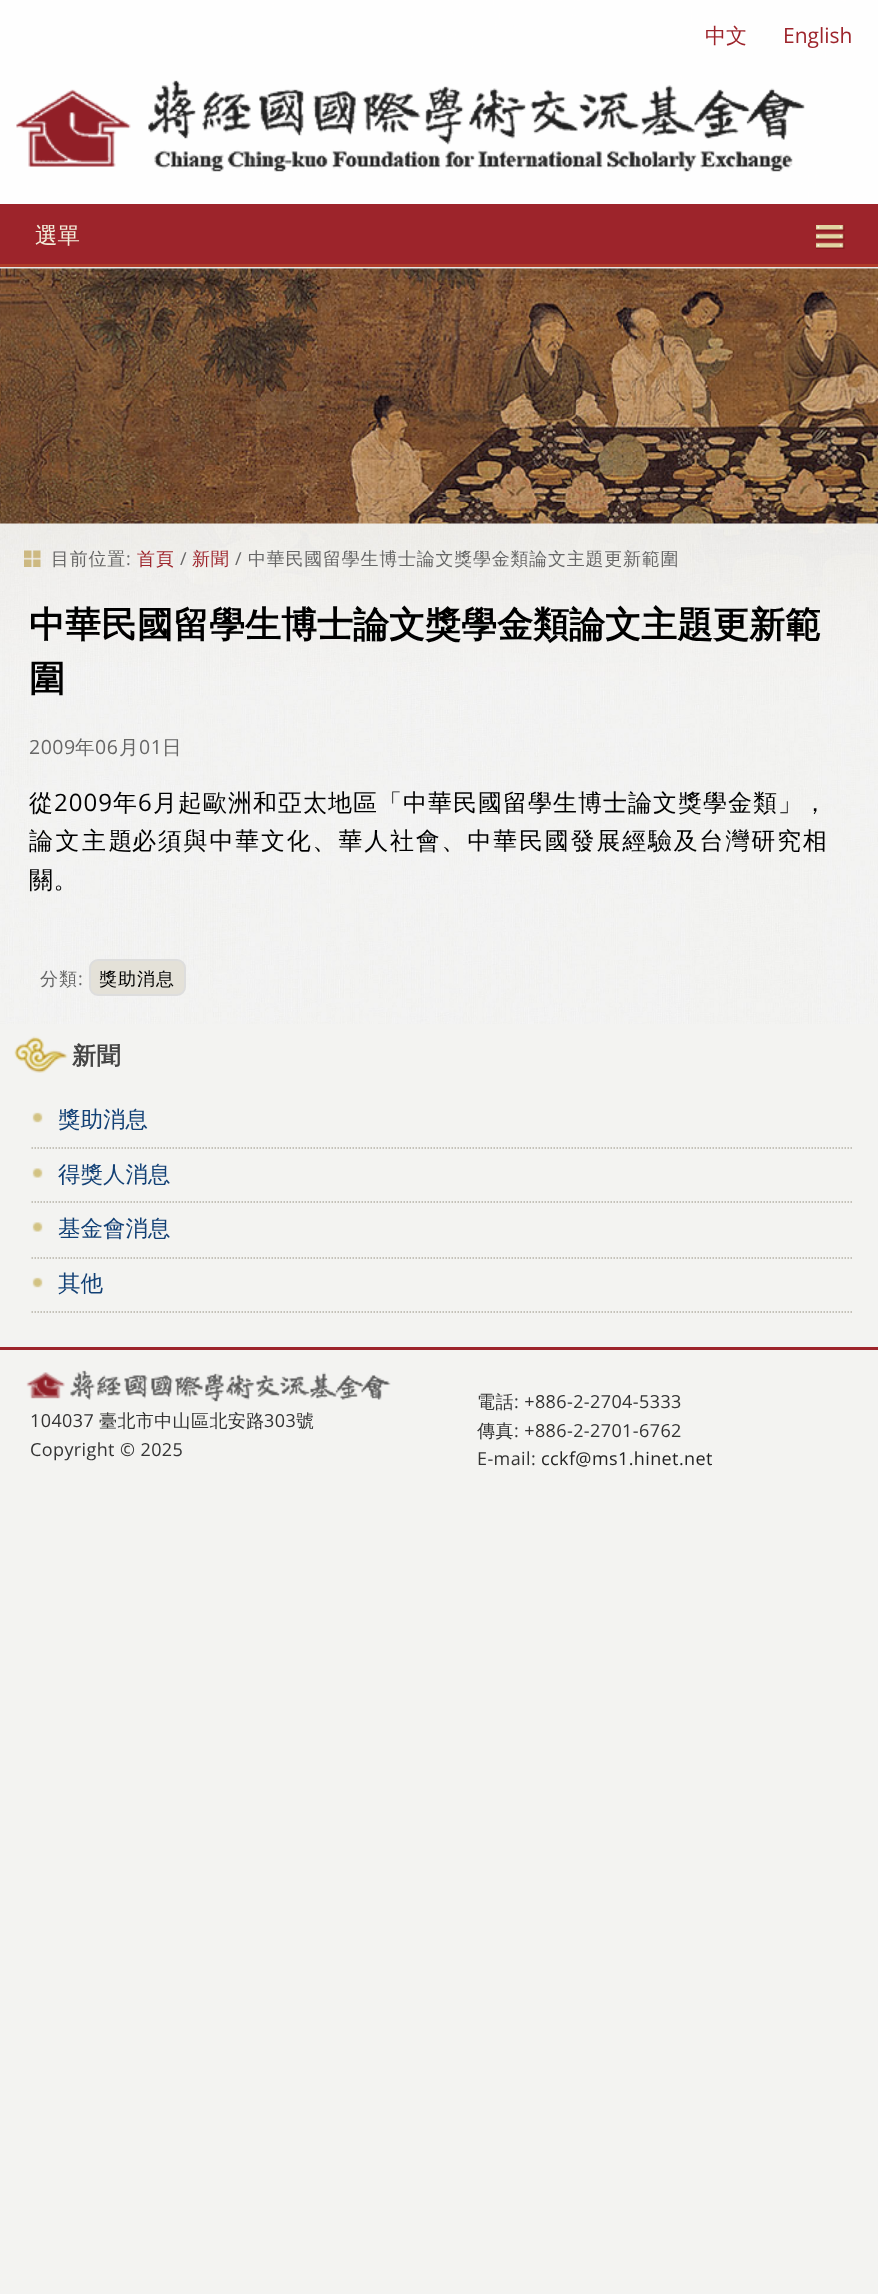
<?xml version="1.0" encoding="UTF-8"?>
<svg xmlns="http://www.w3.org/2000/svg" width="878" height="2294">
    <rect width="100%" height="100%" fill="#F3F3F1"/>
    <image x="0" y="0" width="878" height="1024" href="img_01.png"/>
    <rect x="0" y="0" width="878" height="204" fill="#FFFFFF" fill-opacity="0.95"/>
    <rect x="0" y="267" width="878" height="2" fill="#E6E6E6"/>
    <text x="705" y="43" font-family="WenQuanYi Zen Hei" font-size="21" font-weight="500" fill="#9D242B">中文</text>
    <text x="783" y="43" font-family="Open Sans" font-size="21" fill="#9D242B">English</text>
    <image x="16" y="80" width="789" height="92" href="img_02.png"/>
    <rect x="0" y="204" width="878" height="60" fill="#9D242B"/>
    <rect x="0" y="264" width="878" height="3" fill="#B03C29"/>
    <text x="35" y="243" font-family="WenQuanYi Zen Hei" font-size="22.5" font-weight="500" fill="#F4EFDC">選單</text>
    <image x="816" y="225" width="29" height="24" href="img_03.png"/>
    <image x="0" y="268" width="878" height="256" href="img_04.png"/>
    <image x="24" y="550" width="17" height="17" href="img_05.png"/>
    <text x="51" y="565" font-family="WenQuanYi Zen Hei" font-size="18" font-weight="500" letter-spacing="0.75" fill="#666666">目前位置</text>
    <text x="126" y="565" font-family="Open Sans" font-size="18" letter-spacing="0.75" fill="#666666">:</text>
    <text x="137" y="565" font-family="WenQuanYi Zen Hei" font-size="18" font-weight="500" letter-spacing="0.75" fill="#9D242B">首頁</text>
    <text x="180" y="565" font-family="Open Sans" font-size="18" letter-spacing="0.75" fill="#666666">/</text>
    <text x="192" y="565" font-family="WenQuanYi Zen Hei" font-size="18" font-weight="500" letter-spacing="0.75" fill="#9D242B">新聞</text>
    <text x="235" y="565" font-family="Open Sans" font-size="18" letter-spacing="0.75" fill="#666666">/</text>
    <text x="248" y="565" font-family="WenQuanYi Zen Hei" font-size="18" font-weight="500" letter-spacing="0.75" fill="#666666">中華民國留學生博士論文獎學金類論文主題更新範圍</text>
    <text font-family="WenQuanYi Zen Hei" font-size="36" font-weight="700" fill="#000000">
        <tspan x="29" y="637">中華民國留學生博士論文獎學金類論文主題更新範</tspan>
        <tspan x="29" y="691">圍</tspan>
    </text>
    <text x="29" y="754" font-family="Open Sans" font-size="19.5" letter-spacing="0.5" fill="#666666">2009</text>
    <text x="75" y="754" font-family="WenQuanYi Zen Hei" font-size="19.5" font-weight="500" letter-spacing="0.5" fill="#666666">年</text>
    <text x="95" y="754" font-family="Open Sans" font-size="19.5" letter-spacing="0.5" fill="#666666">06</text>
    <text x="119" y="754" font-family="WenQuanYi Zen Hei" font-size="19.5" font-weight="500" letter-spacing="0.5" fill="#666666">月</text>
    <text x="139" y="754" font-family="Open Sans" font-size="19.5" letter-spacing="0.5" fill="#666666">01</text>
    <text x="162" y="754" font-family="WenQuanYi Zen Hei" font-size="19.5" font-weight="500" letter-spacing="0.5" fill="#666666">日</text>
    <text x="29" y="811" font-family="WenQuanYi Zen Hei" font-size="24" font-weight="500" letter-spacing="1" fill="#000000">從</text>
    <text x="54" y="811" font-family="Open Sans" font-size="24" letter-spacing="1" fill="#000000">2009</text>
    <text x="113" y="811" font-family="WenQuanYi Zen Hei" font-size="24" font-weight="500" letter-spacing="1" fill="#000000">年</text>
    <text x="138" y="811" font-family="Open Sans" font-size="24" letter-spacing="1" fill="#000000">6</text>
    <text x="153" y="811" font-family="WenQuanYi Zen Hei" font-size="24" font-weight="500" letter-spacing="1" fill="#000000">月起歐洲和亞太地區「中華民國留學生博士論文獎學金類」，</text>
    <text x="29" y="849" font-family="WenQuanYi Zen Hei" font-size="24" font-weight="500" letter-spacing="2.5" fill="#000000">論文主題</text>
    <text x="132" y="849" font-family="WenQuanYi Zen Hei" font-size="24" font-weight="500" letter-spacing="1.8" fill="#000000">必須與中華文化、華人社會、中華民國發展經驗及台灣研究相</text>
    <text x="29" y="888" font-family="WenQuanYi Zen Hei" font-size="24" font-weight="500" letter-spacing="0.5" fill="#000000">關。</text>
    <text x="40" y="985" font-family="WenQuanYi Zen Hei" font-size="18" font-weight="500" letter-spacing="1" fill="#666666">分類</text>
    <text x="78" y="985" font-family="Open Sans" font-size="18" letter-spacing="1" fill="#666666">:</text>
    <rect x="90" y="960" width="95" height="35" rx="8" fill="#E4E1D8" stroke="#DDDDDD" stroke-width="2"/>
    <text x="99" y="985" font-family="WenQuanYi Zen Hei" font-size="18" font-weight="500" letter-spacing="1" fill="#000000">獎助消息</text>
    <image x="14" y="1036" width="54" height="37" href="img_06.png"/>
    <text x="72" y="1064" font-family="WenQuanYi Zen Hei" font-size="24" font-weight="700" letter-spacing="0.5" fill="#444444">新聞</text>
    <image x="32" y="1112" width="11" height="11" href="img_07.png"/>
    <path d="M 31.5 1148 H 852" fill="none" stroke="#B6B3A7" stroke-width="1.5" stroke-dasharray="1.5 1.5"/>
    <text x="58" y="1127" font-family="WenQuanYi Zen Hei" font-size="22.5" font-weight="500" fill="#124075">獎助消息</text>
    <image x="32" y="1168" width="11" height="10" href="img_08.png"/>
    <path d="M 31.5 1202 H 852" fill="none" stroke="#B6B3A7" stroke-width="1.5" stroke-dasharray="1.5 1.5"/>
    <text x="58" y="1182" font-family="WenQuanYi Zen Hei" font-size="22.5" font-weight="500" fill="#124075">得獎人消息</text>
    <image x="32" y="1222" width="11" height="10" href="img_08.png"/>
    <path d="M 31.5 1258 H 852" fill="none" stroke="#B6B3A7" stroke-width="1.5" stroke-dasharray="1.5 1.5"/>
    <text x="58" y="1236" font-family="WenQuanYi Zen Hei" font-size="22.5" font-weight="500" fill="#124075">基金會消息</text>
    <image x="32" y="1277" width="11" height="11" href="img_07.png"/>
    <path d="M 31.5 1312 H 852" fill="none" stroke="#B6B3A7" stroke-width="1.5" stroke-dasharray="1.5 1.5"/>
    <text x="58" y="1291" font-family="WenQuanYi Zen Hei" font-size="22.5" font-weight="500" fill="#124075">其他</text>
    <rect x="0" y="1347" width="878" height="3" fill="#9D242B"/>
    <image x="26" y="1370" width="365" height="32" href="img_09.png"/>
    <text x="30" y="1427" font-family="Open Sans" font-size="18" letter-spacing="0.4" fill="#333333">104037</text>
    <text x="99" y="1427" font-family="WenQuanYi Zen Hei" font-size="18" font-weight="500" letter-spacing="0.4" fill="#333333">臺北市中山區北安路</text>
    <text x="264" y="1427" font-family="Open Sans" font-size="18" letter-spacing="0.4" fill="#333333">303</text>
    <text x="296" y="1427" font-family="WenQuanYi Zen Hei" font-size="18" font-weight="500" letter-spacing="0.4" fill="#333333">號</text>
    <text x="30" y="1456" font-family="Open Sans" font-size="18" letter-spacing="0.4" fill="#333333">Copyright © 2025</text>
    <text x="477" y="1408" font-family="WenQuanYi Zen Hei" font-size="18" font-weight="500" letter-spacing="0.4" fill="#333333">電話</text>
    <text x="514" y="1408" font-family="Open Sans" font-size="18" letter-spacing="0.4" fill="#333333">: +886-2-2704-5333</text>
    <text x="477" y="1437" font-family="WenQuanYi Zen Hei" font-size="18" font-weight="500" letter-spacing="0.4" fill="#333333">傳真</text>
    <text x="514" y="1437" font-family="Open Sans" font-size="18" letter-spacing="0.4" fill="#333333">: +886-2-2701-6762</text>
    <text x="477" y="1465" font-family="Open Sans" font-size="18" letter-spacing="0.4" fill="#333333">E-mail:</text>
    <text x="541" y="1465" font-family="Open Sans" font-size="18" letter-spacing="0.4" fill="#222222">cckf@ms1.hinet.net</text>
</svg>
